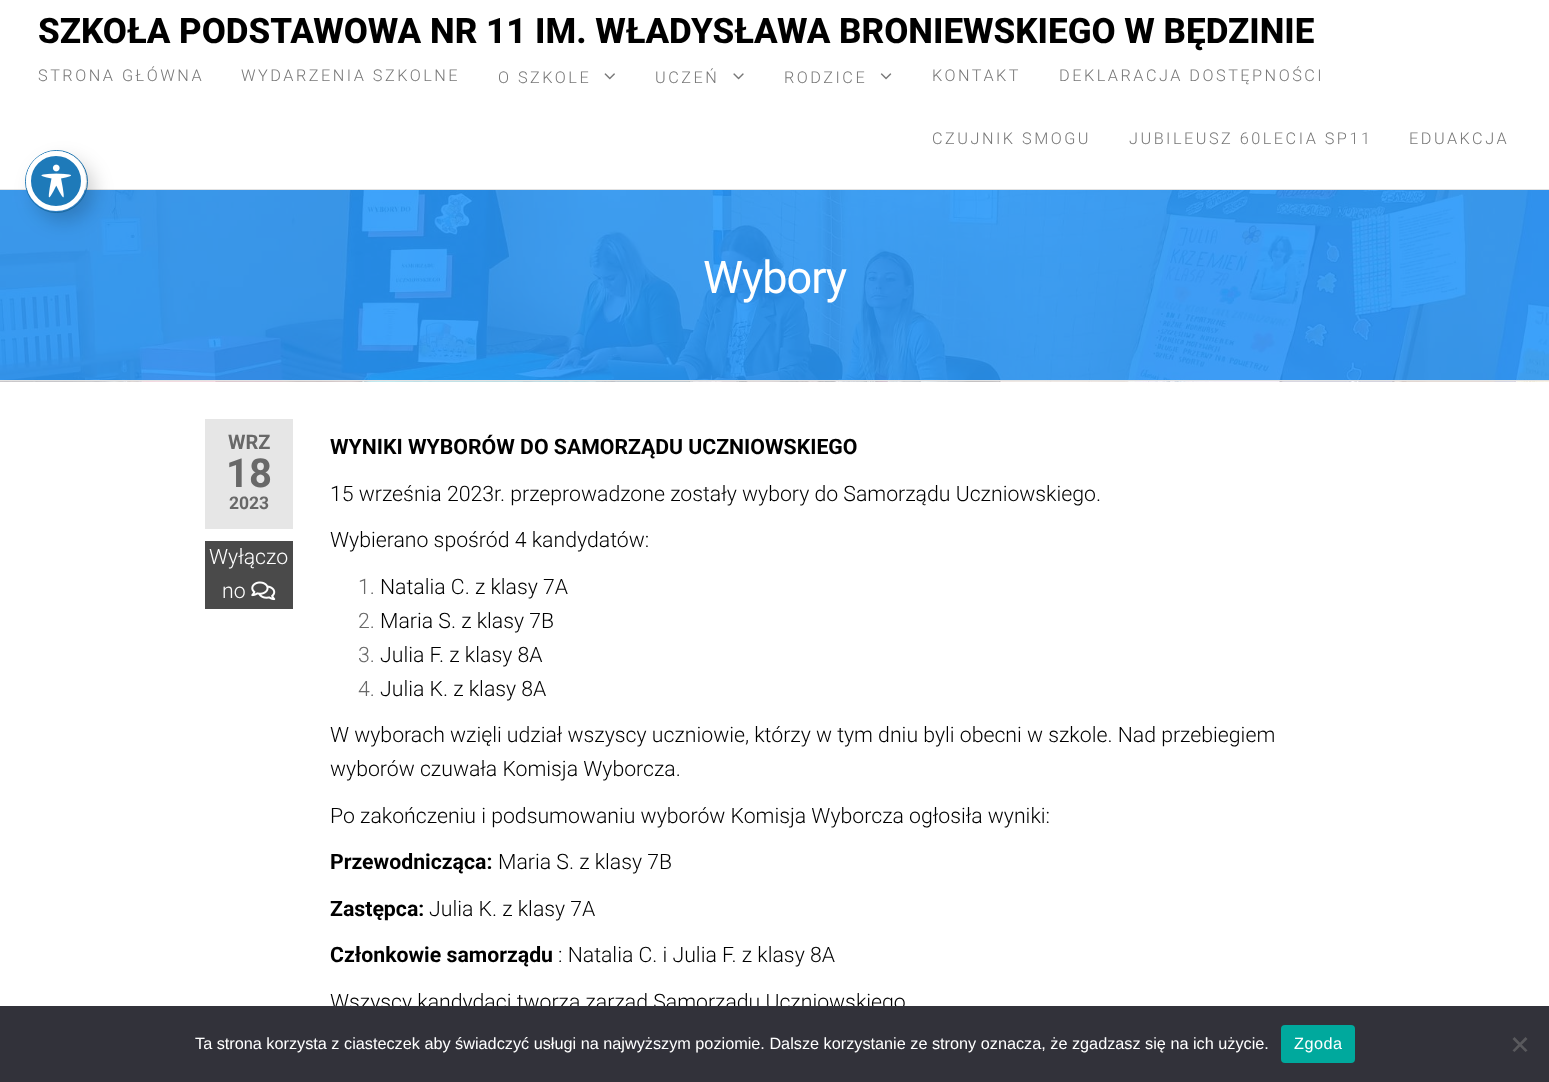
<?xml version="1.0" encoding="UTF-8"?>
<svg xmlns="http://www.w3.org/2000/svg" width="1549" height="1082">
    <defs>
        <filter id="blur1" x="-50%" y="-200%" width="200%" height="500%"><feGaussianBlur stdDeviation="10"/></filter>
    </defs>
    <rect width="100%" height="100%" fill="#FFFFFF"/>
    <rect x="0" y="189" width="1549" height="1" fill="#E2E2E2"/>
    <text x="38" y="43" font-family="Roboto" font-size="35" font-weight="800" fill="#000000">SZKOŁA PODSTAWOWA NR 11 IM. WŁADYSŁAWA BRONIEWSKIEGO W BĘDZINIE</text>
    <text x="38" y="81" font-family="Roboto" font-size="16.25" font-weight="300" letter-spacing="2.5" fill="#777777">STRONA GŁÓWNA</text>
    <text x="241" y="81" font-family="Roboto" font-size="16.25" font-weight="300" letter-spacing="2.5" fill="#777777">WYDARZENIA SZKOLNE</text>
    <text x="498" y="83" font-family="Roboto" font-size="16.25" font-weight="300" letter-spacing="2.5" fill="#777777">O SZKOLE</text>
    <image x="604" y="73" width="11" height="7" href="img_01.png"/>
    <text x="655" y="83" font-family="Roboto" font-size="16.25" font-weight="300" letter-spacing="2.5" fill="#777777">UCZEŃ</text>
    <image x="733" y="73" width="11" height="7" href="img_02.png"/>
    <text x="784" y="83" font-family="Roboto" font-size="16.25" font-weight="300" letter-spacing="2.5" fill="#777777">RODZICE</text>
    <image x="880" y="73" width="12" height="7" href="img_03.png"/>
    <text x="932" y="81" font-family="Roboto" font-size="16.25" font-weight="300" letter-spacing="2.5" fill="#777777">KONTAKT</text>
    <text x="1059" y="81" font-family="Roboto" font-size="16.25" font-weight="300" letter-spacing="2.5" fill="#777777">DEKLARACJA DOSTĘPNOŚCI</text>
    <text x="932" y="144" font-family="Roboto" font-size="16.25" font-weight="300" letter-spacing="2.5" fill="#777777">CZUJNIK SMOGU</text>
    <text x="1129" y="144" font-family="Roboto" font-size="16.25" font-weight="300" letter-spacing="2.5" fill="#777777">JUBILEUSZ 60LECIA SP11</text>
    <text x="1409" y="144" font-family="Roboto" font-size="16.25" font-weight="300" letter-spacing="2.5" fill="#777777">EDUAKCJA</text>
    <image x="0" y="190" width="1549" height="192" href="img_04.png"/>
    <rect x="0" y="380" width="1549" height="1" fill="#E2E2E2"/>
    <text x="703" y="293" font-family="Roboto" font-size="45" letter-spacing="-1" fill="#FFFFFF">Wybory</text>
    <rect x="205" y="419" width="88" height="110" fill="#E6E6E6"/>
    <text x="228" y="449" font-family="Roboto" font-size="20" font-weight="700" fill="#686868">WRZ</text>
    <text x="226" y="487" font-family="Roboto" font-size="40" font-weight="700" fill="#686868">18</text>
    <text x="229" y="509" font-family="Roboto" font-size="17.5" font-weight="700" fill="#686868">2023</text>
    <rect x="205" y="541" width="88" height="68" fill="#4A4A4A"/>
    <text x="209" y="564" font-family="Roboto" font-size="21.25" font-weight="300" fill="#FFFFFF">Wyłączo</text>
    <text x="222" y="598" font-family="Roboto" font-size="21.25" font-weight="300" fill="#FFFFFF">no</text>
    <image x="251" y="581" width="25" height="20" href="img_05.png"/>
    <text x="330" y="454" font-family="Roboto" font-size="21.25" font-weight="700" fill="#000000">WYNIKI WYBORÓW DO SAMORZĄDU UCZNIOWSKIEGO</text>
    <text x="330" y="501" font-family="Roboto" font-size="21.25" font-weight="300" fill="#000000">15 września 2023r. przeprowadzone zostały wybory do Samorządu Uczniowskiego.</text>
    <text x="330" y="547" font-family="Roboto" font-size="21.25" font-weight="300" fill="#000000">Wybierano spośród 4 kandydatów:</text>
    <text x="358" y="594" font-family="Roboto" font-size="21.25" font-weight="300" fill="#686868">1.</text>
    <text x="380" y="594" font-family="Roboto" font-size="21.25" font-weight="300" fill="#000000">Natalia C. z klasy 7A</text>
    <text x="358" y="628" font-family="Roboto" font-size="21.25" font-weight="300" fill="#686868">2.</text>
    <text x="380" y="628" font-family="Roboto" font-size="21.25" font-weight="300" fill="#000000">Maria S. z klasy 7B</text>
    <text x="358" y="662" font-family="Roboto" font-size="21.25" font-weight="300" fill="#686868">3.</text>
    <text x="380" y="662" font-family="Roboto" font-size="21.25" font-weight="300" fill="#000000">Julia F. z klasy 8A</text>
    <text x="358" y="696" font-family="Roboto" font-size="21.25" font-weight="300" fill="#686868">4.</text>
    <text x="380" y="696" font-family="Roboto" font-size="21.25" font-weight="300" fill="#000000">Julia K. z klasy 8A</text>
    <text font-family="Roboto" font-size="21.25" font-weight="300" fill="#000000">
        <tspan x="330" y="742">W wyborach wzięli udział wszyscy uczniowie, którzy w tym dniu byli obecni w szkole. Nad przebiegiem</tspan>
        <tspan x="330" y="776">wyborów czuwała Komisja Wyborcza.</tspan>
    </text>
    <text x="330" y="823" font-family="Roboto" font-size="21.25" font-weight="300" fill="#000000">Po zakończeniu i podsumowaniu wyborów Komisja Wyborcza ogłosiła wyniki:</text>
    <text x="330" y="869" font-family="Roboto" font-size="21.25" font-weight="700" fill="#000000">Przewodnicząca:</text>
    <text x="498" y="869" font-family="Roboto" font-size="21.25" font-weight="300" fill="#000000">Maria S. z klasy 7B</text>
    <text x="330" y="916" font-family="Roboto" font-size="21.25" font-weight="700" fill="#000000">Zastępca:</text>
    <text x="429" y="916" font-family="Roboto" font-size="21.25" font-weight="300" fill="#000000">Julia K. z klasy 7A</text>
    <text x="330" y="962" font-family="Roboto" font-size="21.25" font-weight="700" fill="#000000">Członkowie samorządu</text>
    <text x="558" y="962" font-family="Roboto" font-size="21.25" font-weight="300" fill="#000000">: Natalia C. i Julia F. z klasy 8A</text>
    <text x="330" y="1009" font-family="Roboto" font-size="21.25" font-weight="300" fill="#000000">Wszyscy kandydaci tworzą zarząd Samorządu Uczniowskiego</text>
    <circle cx="56.5" cy="181.5" r="31" fill="none" stroke="#1E7AB9"/>
    <rect x="34" y="161" width="60" height="60" rx="30" fill="#000000" fill-opacity="0.2" filter="url(#blur1)"/>
    <circle cx="56" cy="181" r="27.5" fill="#1E7AB9" stroke="#FFFFFF" stroke-width="5"/>
    <image x="41" y="164" width="30" height="34" href="img_06.png"/>
    <rect x="0" y="1006" width="1549" height="76" fill="#32323A"/>
    <text x="195" y="1049" font-family="Liberation Sans" font-size="16.25" fill="#FFFFFF">Ta strona korzysta z ciasteczek aby świadczyć usługi na najwyższym poziomie. Dalsze korzystanie ze strony oznacza, że zgadzasz się na ich użycie.</text>
    <rect x="1281" y="1025" width="74" height="38" rx="4" fill="#00A99D"/>
    <text x="1294" y="1049" font-family="Liberation Sans" font-size="16.25" letter-spacing="0.5" fill="#FFFFFF">Zgoda</text>
    <path d="M 1525.5 1037 L 1527.5 1039 L 1514.5 1052 L 1512.5 1050.5 Z" fill="#59595D"/>
    <path d="M 1512.5 1039 L 1514.5 1037 L 1527.5 1050.5 L 1525.5 1052 Z" fill="#59595D"/>
</svg>
